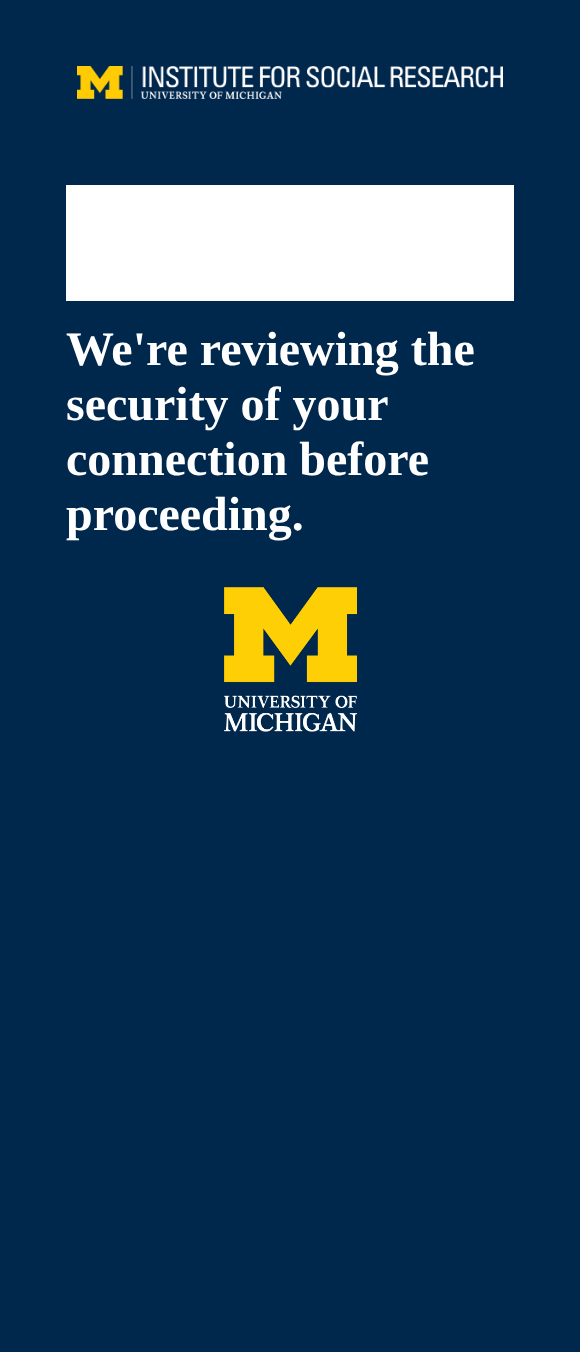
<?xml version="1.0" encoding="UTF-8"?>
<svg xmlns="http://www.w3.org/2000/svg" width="580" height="1352">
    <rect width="100%" height="100%" fill="#00274C"/>
    <image x="77" y="66" width="426" height="33" href="img_01.png"/>
    <rect x="66" y="185" width="448" height="116" fill="#FFFFFF"/>
    <text font-family="Liberation Serif" font-size="48" font-weight="700" fill="#FFFFFF">
        <tspan x="66" y="365">We're reviewing the</tspan>
        <tspan x="66" y="420">security of your</tspan>
        <tspan x="66" y="475">connection before</tspan>
        <tspan x="66" y="530">proceeding.</tspan>
    </text>
    <image x="223" y="587" width="134" height="145" href="img_02.png"/>
</svg>
